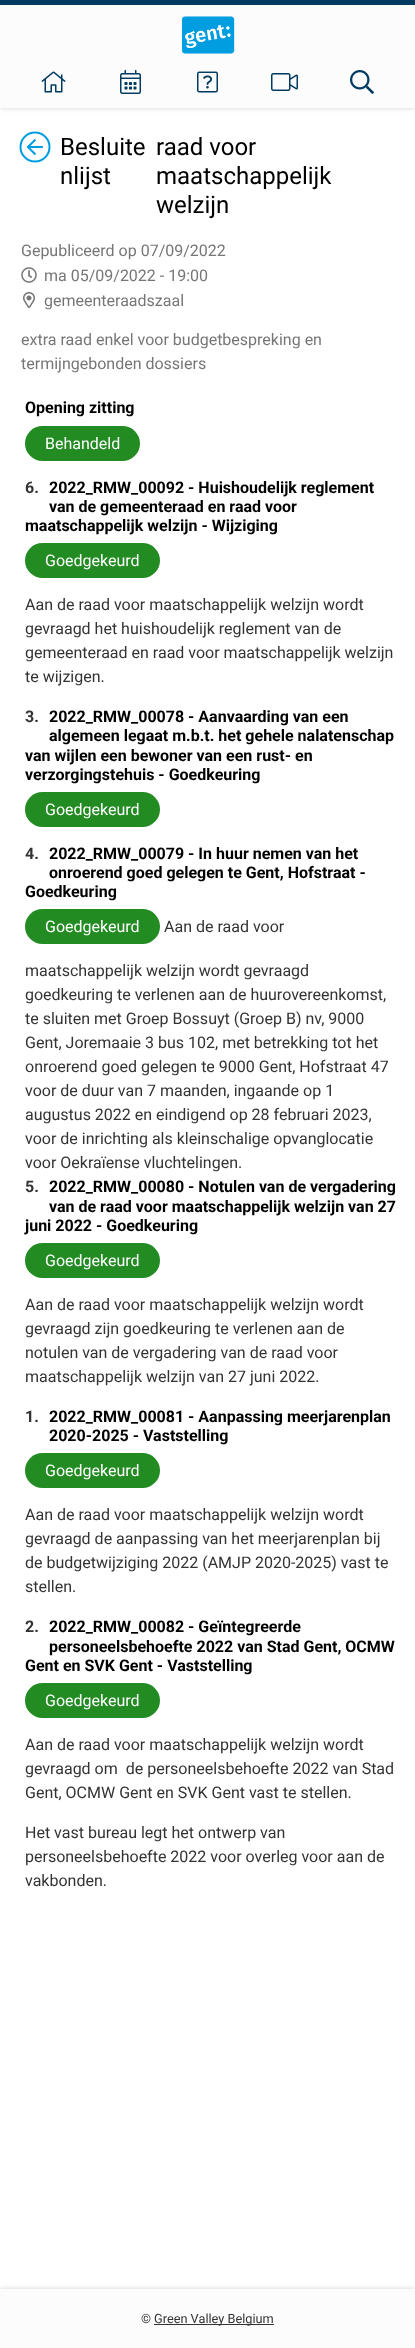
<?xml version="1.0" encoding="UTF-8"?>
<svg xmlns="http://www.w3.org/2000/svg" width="415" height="2348">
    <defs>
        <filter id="blur1" x="-50%" y="-200%" width="200%" height="500%"><feGaussianBlur stdDeviation="2.5"/></filter>
    </defs>
    <rect width="100%" height="100%" fill="#FFFFFF"/>
    <rect x="0" y="0" width="415" height="108" fill="#D1D1D1" filter="url(#blur1)"/>
    <rect x="0" y="5" width="415" height="103" fill="#FCFCFC"/>
    <rect x="0" y="0" width="415" height="5" fill="#023B61"/>
    <image x="181" y="16" width="54" height="38" href="img_01.png"/>
    <image x="41" y="71" width="25" height="22" href="img_02.png"/>
    <image x="120" y="70" width="21" height="24" href="img_03.png"/>
    <image x="197" y="71" width="21" height="22" href="img_04.png"/>
    <image x="271" y="73" width="27" height="18" href="img_05.png"/>
    <image x="350" y="70" width="24" height="24" href="img_06.png"/>
    <image x="19" y="131" width="32" height="32" href="img_07.png"/>
    <text font-family="Roboto" font-size="24" fill="#000000">
        <tspan x="60" y="155">Besluite</tspan>
        <tspan x="60" y="184">nlijst</tspan>
    </text>
    <text font-family="Roboto" font-size="24" fill="#000000">
        <tspan x="156" y="155">raad voor</tspan>
        <tspan x="156" y="184">maatschappelijk</tspan>
        <tspan x="156" y="213">welzijn</tspan>
    </text>
    <text x="21" y="256" font-family="Roboto" font-size="16" fill="#767676">Gepubliceerd op 07/09/2022</text>
    <image x="21" y="267" width="16" height="16" href="img_08.png"/>
    <text x="44" y="281" font-family="Roboto" font-size="16" fill="#767676">ma 05/09/2022 - 19:00</text>
    <image x="23" y="292" width="12" height="16" href="img_09.png"/>
    <text x="44" y="306" font-family="Roboto" font-size="16" fill="#767676">gemeenteraadszaal</text>
    <text font-family="Roboto" font-size="16" fill="#767676">
        <tspan x="21" y="345">extra raad enkel voor budgetbespreking en</tspan>
        <tspan x="21" y="369">termijngebonden dossiers</tspan>
    </text>
    <text x="25" y="413" font-family="Roboto" font-size="16" font-weight="700" fill="#000000">Opening zitting</text>
    <rect x="25" y="426" width="115" height="35" rx="17.5" fill="#228B22"/>
    <text x="45" y="449" font-family="Roboto" font-size="16" fill="#FFFFFF">Behandeld</text>
    <text x="25" y="493" font-family="Roboto" font-size="16" font-weight="700" fill="#333333">6.</text>
    <text font-family="Roboto" font-size="16" font-weight="700" fill="#000000">
        <tspan x="49" y="493">2022_RMW_00092 - Huishoudelijk reglement</tspan>
        <tspan x="49" y="512">van de gemeenteraad en raad voor</tspan>
    </text>
    <text x="25" y="531" font-family="Roboto" font-size="16" font-weight="700" fill="#000000">maatschappelijk welzijn - Wijziging</text>
    <rect x="25" y="543" width="135" height="35" rx="17.5" fill="#228B22"/>
    <text x="45" y="566" font-family="Roboto" font-size="16" fill="#FFFFFF">Goedgekeurd</text>
    <text font-family="Roboto" font-size="16" fill="#333333">
        <tspan x="25" y="610">Aan de raad voor maatschappelijk welzijn wordt</tspan>
        <tspan x="25" y="634">gevraagd het huishoudelijk reglement van de</tspan>
        <tspan x="25" y="658">gemeenteraad en raad voor maatschappelijk welzijn</tspan>
        <tspan x="25" y="682">te wijzigen.</tspan>
    </text>
    <text x="25" y="722" font-family="Roboto" font-size="16" font-weight="700" fill="#333333">3.</text>
    <text font-family="Roboto" font-size="16" font-weight="700" fill="#000000">
        <tspan x="49" y="722">2022_RMW_00078 - Aanvaarding van een</tspan>
        <tspan x="49" y="741">algemeen legaat m.b.t. het gehele nalatenschap</tspan>
    </text>
    <text font-family="Roboto" font-size="16" font-weight="700" fill="#000000">
        <tspan x="25" y="761">van wijlen een bewoner van een rust- en</tspan>
        <tspan x="25" y="780">verzorgingstehuis - Goedkeuring</tspan>
    </text>
    <rect x="25" y="792" width="135" height="35" rx="17.5" fill="#228B22"/>
    <text x="45" y="815" font-family="Roboto" font-size="16" fill="#FFFFFF">Goedgekeurd</text>
    <text x="25" y="859" font-family="Roboto" font-size="16" font-weight="700" fill="#333333">4.</text>
    <text font-family="Roboto" font-size="16" font-weight="700" fill="#000000">
        <tspan x="49" y="859">2022_RMW_00079 - In huur nemen van het</tspan>
        <tspan x="49" y="878">onroerend goed gelegen te Gent, Hofstraat -</tspan>
    </text>
    <text x="25" y="897" font-family="Roboto" font-size="16" font-weight="700" fill="#000000">Goedkeuring</text>
    <rect x="25" y="909" width="135" height="35" rx="17.5" fill="#228B22"/>
    <text x="45" y="932" font-family="Roboto" font-size="16" fill="#FFFFFF">Goedgekeurd</text>
    <text x="164" y="932" font-family="Roboto" font-size="16" fill="#333333">Aan de raad voor</text>
    <text font-family="Roboto" font-size="16" fill="#333333">
        <tspan x="25" y="976">maatschappelijk welzijn wordt gevraagd</tspan>
        <tspan x="25" y="1000">goedkeuring te verlenen aan de huurovereenkomst,</tspan>
        <tspan x="25" y="1024">te sluiten met Groep Bossuyt (Groep B) nv, 9000</tspan>
        <tspan x="25" y="1048">Gent, Joremaaie 3 bus 102, met betrekking tot het</tspan>
        <tspan x="25" y="1072">onroerend goed gelegen te 9000 Gent, Hofstraat 47</tspan>
        <tspan x="25" y="1096">voor de duur van 7 maanden, ingaande op 1</tspan>
        <tspan x="25" y="1120">augustus 2022 en eindigend op 28 februari 2023,</tspan>
        <tspan x="25" y="1144">voor de inrichting als kleinschalige opvanglocatie</tspan>
        <tspan x="25" y="1168">voor Oekraïense vluchtelingen.</tspan>
    </text>
    <text font-family="Roboto" font-size="16" font-weight="700" fill="#000000">
        <tspan x="49" y="1192">2022_RMW_00080 - Notulen van de vergadering</tspan>
        <tspan x="49" y="1212">van de raad voor maatschappelijk welzijn van 27</tspan>
    </text>
    <text x="25" y="1231" font-family="Roboto" font-size="16" font-weight="700" fill="#000000">juni 2022 - Goedkeuring</text>
    <text x="25" y="1192" font-family="Roboto" font-size="16" font-weight="700" fill="#333333">5.</text>
    <rect x="25" y="1243" width="135" height="35" rx="17.5" fill="#228B22"/>
    <text x="45" y="1266" font-family="Roboto" font-size="16" fill="#FFFFFF">Goedgekeurd</text>
    <text font-family="Roboto" font-size="16" fill="#333333">
        <tspan x="25" y="1310">Aan de raad voor maatschappelijk welzijn wordt</tspan>
        <tspan x="25" y="1334">gevraagd zijn goedkeuring te verlenen aan de</tspan>
        <tspan x="25" y="1358">notulen van de vergadering van de raad voor</tspan>
        <tspan x="25" y="1382">maatschappelijk welzijn van 27 juni 2022.</tspan>
    </text>
    <text x="25" y="1422" font-family="Roboto" font-size="16" font-weight="700" fill="#333333">1.</text>
    <text font-family="Roboto" font-size="16" font-weight="700" fill="#000000">
        <tspan x="49" y="1422">2022_RMW_00081 - Aanpassing meerjarenplan</tspan>
        <tspan x="49" y="1441">2020-2025 - Vaststelling</tspan>
    </text>
    <rect x="25" y="1453" width="135" height="35" rx="17.5" fill="#228B22"/>
    <text x="45" y="1476" font-family="Roboto" font-size="16" fill="#FFFFFF">Goedgekeurd</text>
    <text font-family="Roboto" font-size="16" fill="#333333">
        <tspan x="25" y="1520">Aan de raad voor maatschappelijk welzijn wordt</tspan>
        <tspan x="25" y="1544">gevraagd de aanpassing van het meerjarenplan bij</tspan>
        <tspan x="25" y="1568">de budgetwijziging 2022 (AMJP 2020-2025) vast te</tspan>
        <tspan x="25" y="1592">stellen.</tspan>
    </text>
    <text x="25" y="1632" font-family="Roboto" font-size="16" font-weight="700" fill="#333333">2.</text>
    <text font-family="Roboto" font-size="16" font-weight="700" fill="#000000">
        <tspan x="49" y="1632">2022_RMW_00082 - Geïntegreerde</tspan>
        <tspan x="49" y="1652">personeelsbehoefte 2022 van Stad Gent, OCMW</tspan>
    </text>
    <text x="25" y="1671" font-family="Roboto" font-size="16" font-weight="700" fill="#000000">Gent en SVK Gent - Vaststelling</text>
    <rect x="25" y="1683" width="135" height="35" rx="17.5" fill="#228B22"/>
    <text x="45" y="1706" font-family="Roboto" font-size="16" fill="#FFFFFF">Goedgekeurd</text>
    <text font-family="Roboto" font-size="16" fill="#333333" xml:space="preserve"><tspan x="25" y="1750">Aan de raad voor maatschappelijk welzijn wordt</tspan><tspan x="25" y="1774">gevraagd om  de personeelsbehoefte 2022 van Stad</tspan><tspan x="25" y="1798">Gent, OCMW Gent en SVK Gent vast te stellen.</tspan></text>
    <text font-family="Roboto" font-size="16" fill="#333333">
        <tspan x="25" y="1838">Het vast bureau legt het ontwerp van</tspan>
        <tspan x="25" y="1862">personeelsbehoefte 2022 voor overleg voor aan de</tspan>
        <tspan x="25" y="1886">vakbonden.</tspan>
    </text>
    <rect x="0" y="2289" width="415" height="59" fill="#D1D1D1" filter="url(#blur1)"/>
    <rect x="0" y="2289" width="415" height="59" fill="#FCFCFC"/>
    <text x="141" y="2323" font-family="Roboto" font-size="12.75" fill="#333333">©</text>
    <rect x="154" y="2324" width="120" height="1" fill="#333333"/>
    <text x="154" y="2323" font-family="Roboto" font-size="12.75" fill="#333333">Green Valley Belgium</text>
</svg>
